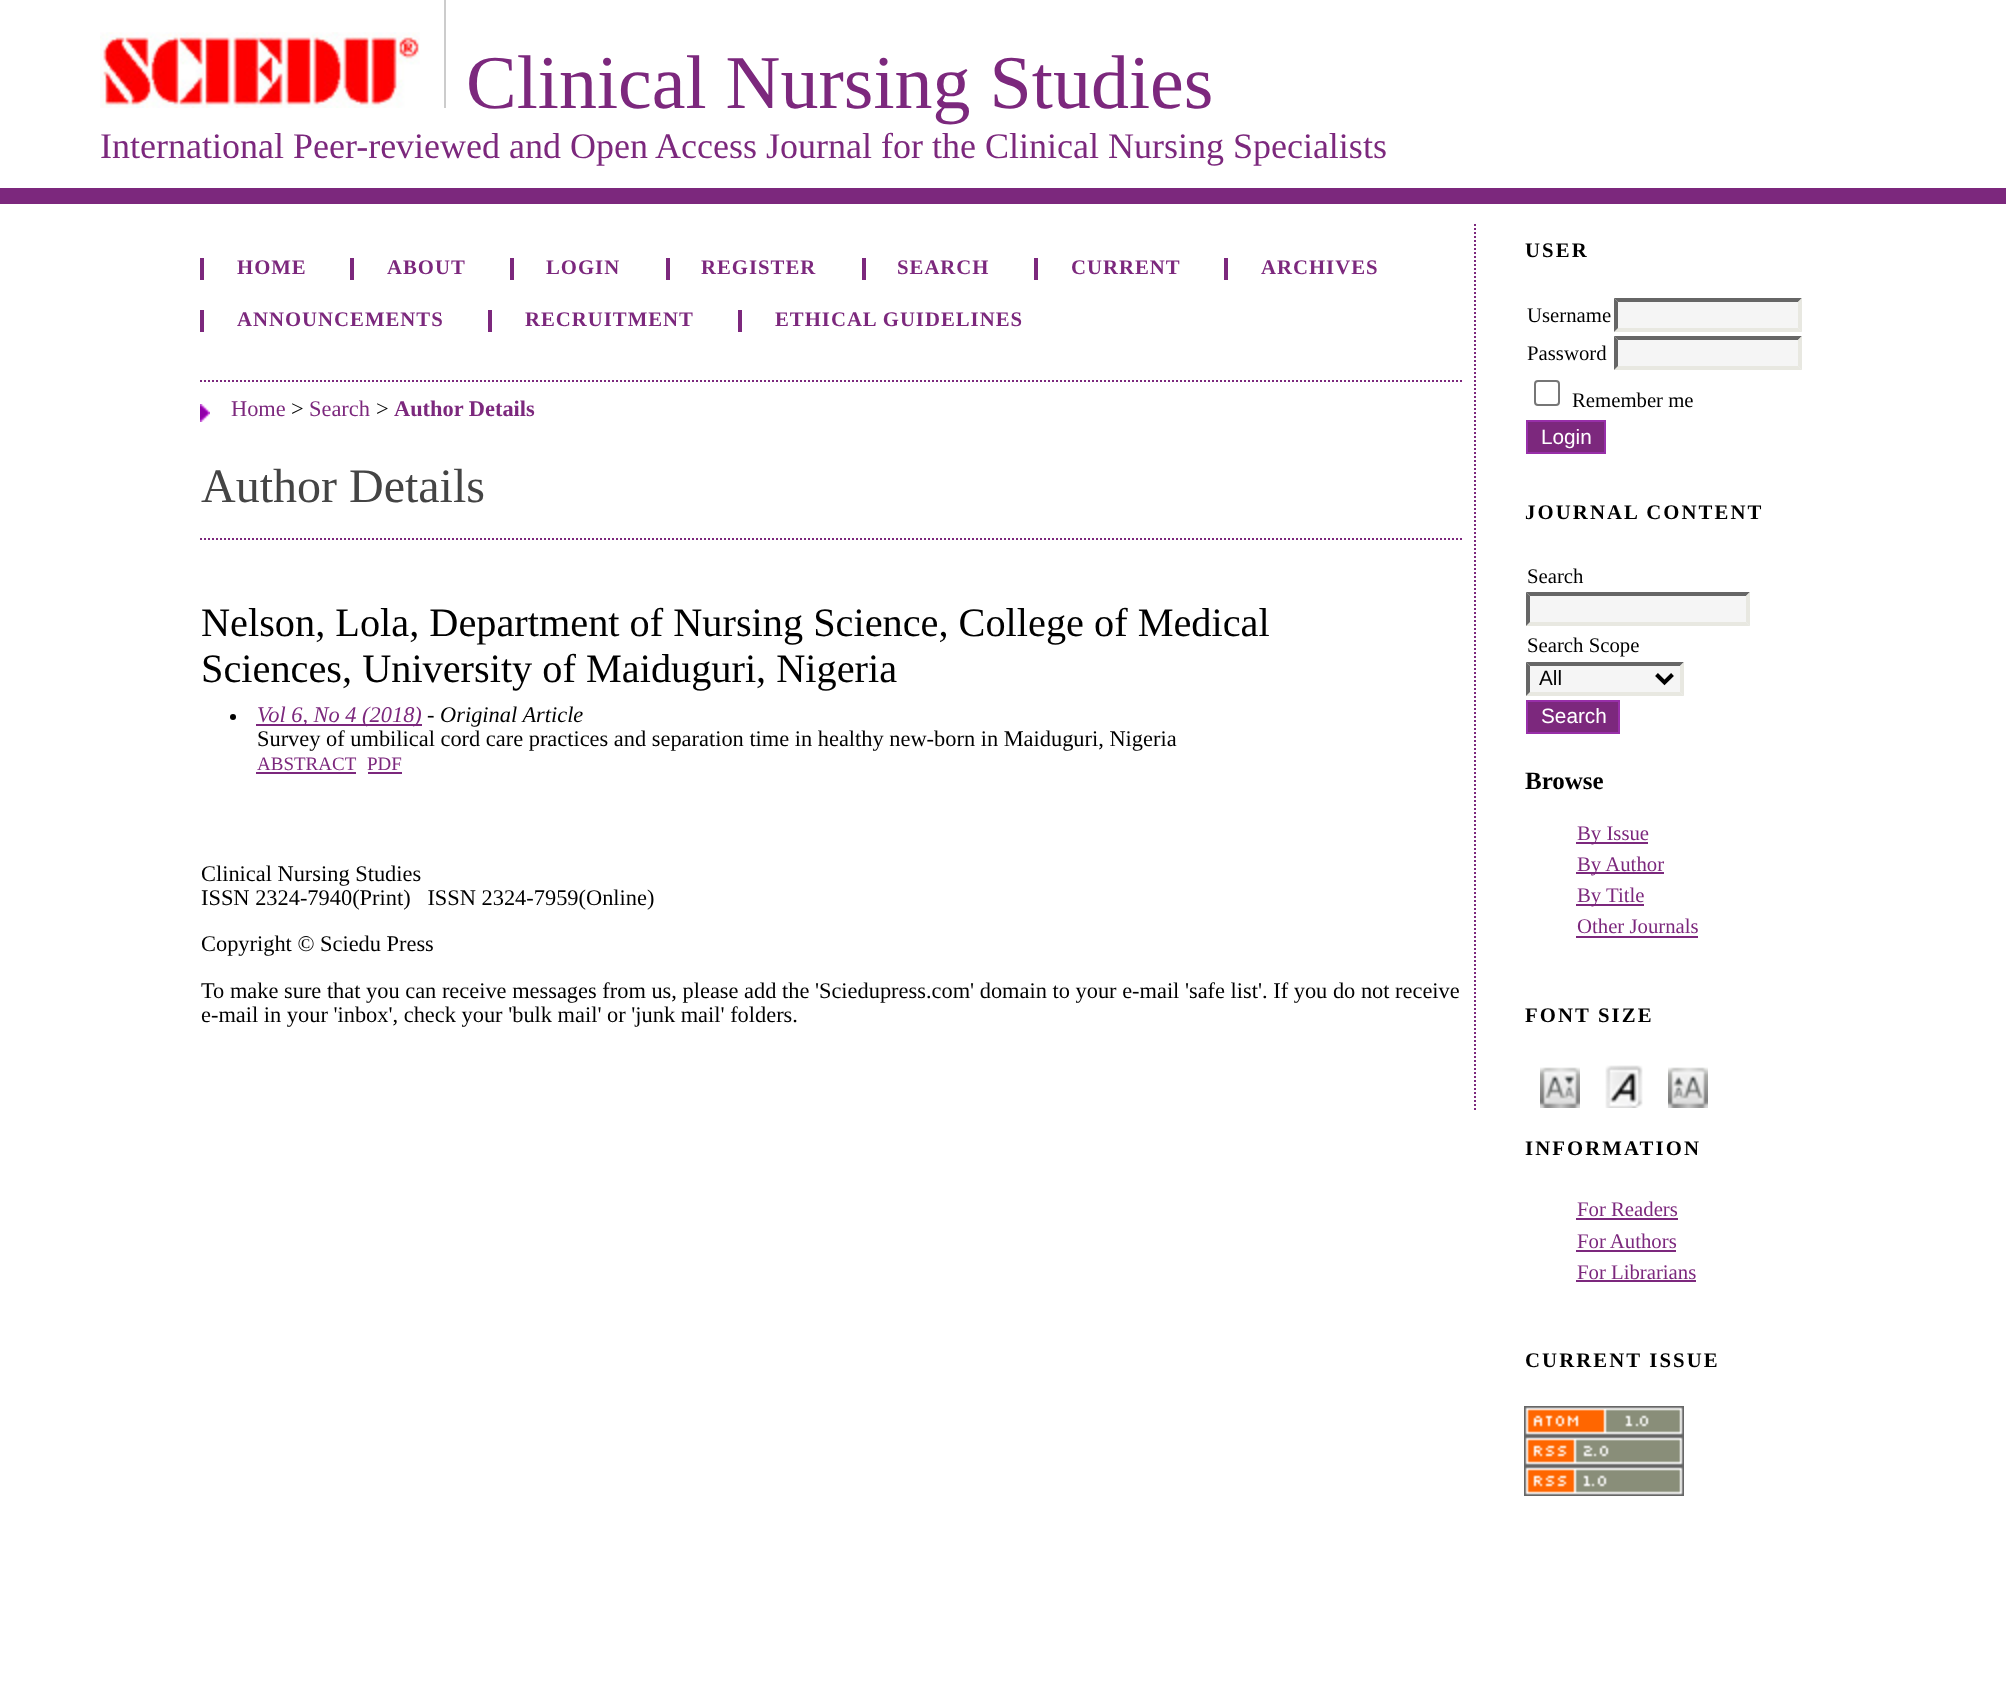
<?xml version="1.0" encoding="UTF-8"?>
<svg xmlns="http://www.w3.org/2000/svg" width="2006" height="1693">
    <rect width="100%" height="100%" fill="#FFFFFF"/>
    <rect x="0" y="188" width="2006" height="16" fill="#7C287D"/>
    <image x="100" y="32" width="320" height="76" href="img_01.png"/>
    <text x="466" y="108" font-family="Liberation Serif" font-size="76" fill="#7C287D">Clinical Nursing Studies</text>
    <rect x="444" y="0" width="2" height="108" fill="#CCCCCC"/>
    <text x="100" y="158" font-family="Liberation Serif" font-size="36" fill="#7C287D">International Peer-reviewed and Open Access Journal for the Clinical Nursing Specialists</text>
    <path d="M 1475 224 V 1112" fill="none" stroke="#7C287D" stroke-width="2" stroke-dasharray="2 2"/>
    <text x="237" y="274" font-family="Liberation Serif" font-size="20.75" font-weight="700" letter-spacing="1" fill="#7C287D">HOME</text>
    <rect x="200" y="258" width="4" height="22" fill="#7C287D"/>
    <text x="387" y="274" font-family="Liberation Serif" font-size="20.75" font-weight="700" letter-spacing="1" fill="#7C287D">ABOUT</text>
    <rect x="350" y="258" width="4" height="22" fill="#7C287D"/>
    <text x="546" y="274" font-family="Liberation Serif" font-size="20.75" font-weight="700" letter-spacing="1" fill="#7C287D">LOGIN</text>
    <rect x="510" y="258" width="4" height="22" fill="#7C287D"/>
    <text x="701" y="274" font-family="Liberation Serif" font-size="20.75" font-weight="700" letter-spacing="1" fill="#7C287D">REGISTER</text>
    <rect x="666" y="258" width="4" height="22" fill="#7C287D"/>
    <text x="897" y="274" font-family="Liberation Serif" font-size="20.75" font-weight="700" letter-spacing="1" fill="#7C287D">SEARCH</text>
    <rect x="862" y="258" width="4" height="22" fill="#7C287D"/>
    <text x="1071" y="274" font-family="Liberation Serif" font-size="20.75" font-weight="700" letter-spacing="1" fill="#7C287D">CURRENT</text>
    <rect x="1034" y="258" width="4" height="22" fill="#7C287D"/>
    <text x="1261" y="274" font-family="Liberation Serif" font-size="20.75" font-weight="700" letter-spacing="1" fill="#7C287D">ARCHIVES</text>
    <rect x="1224" y="258" width="4" height="22" fill="#7C287D"/>
    <text x="237" y="326" font-family="Liberation Serif" font-size="20.75" font-weight="700" letter-spacing="1" fill="#7C287D">ANNOUNCEMENTS</text>
    <rect x="200" y="310" width="4" height="22" fill="#7C287D"/>
    <text x="525" y="326" font-family="Liberation Serif" font-size="20.75" font-weight="700" letter-spacing="1" fill="#7C287D">RECRUITMENT</text>
    <rect x="488" y="310" width="4" height="22" fill="#7C287D"/>
    <text x="775" y="326" font-family="Liberation Serif" font-size="20.75" font-weight="700" letter-spacing="1" fill="#7C287D">ETHICAL GUIDELINES</text>
    <rect x="738" y="310" width="4" height="22" fill="#7C287D"/>
    <image x="200" y="404" width="10" height="18" href="img_02.png"/>
    <path d="M 200 381 H 1464" fill="none" stroke="#7C287D" stroke-width="2" stroke-dasharray="2 2"/>
    <text x="231" y="416" font-family="Liberation Serif" font-size="22.4" fill="#7C287D">Home</text>
    <text x="291" y="416" font-family="Liberation Serif" font-size="22.4" fill="#000000">&gt;</text>
    <text x="309" y="416" font-family="Liberation Serif" font-size="22.4" fill="#7C287D">Search</text>
    <text x="376" y="416" font-family="Liberation Serif" font-size="22.4" fill="#000000">&gt;</text>
    <text x="394" y="416" font-family="Liberation Serif" font-size="22.4" font-weight="700" fill="#7C287D">Author Details</text>
    <text x="201" y="502" font-family="Liberation Serif" font-size="48" fill="#444444">Author Details</text>
    <path d="M 200 539 H 1464" fill="none" stroke="#7C287D" stroke-width="2" stroke-dasharray="2 2"/>
    <text font-family="Liberation Serif" font-size="40.3" fill="#000000">
        <tspan x="201" y="636">Nelson, Lola, Department of Nursing Science, College of Medical</tspan>
        <tspan x="201" y="682">Sciences, University of Maiduguri, Nigeria</tspan>
    </text>
    <circle cx="233" cy="717" r="3" fill="#000000"/>
    <rect x="256" y="724" width="166" height="2" fill="#7C287D"/>
    <text x="257" y="722" font-family="Liberation Serif" font-size="22.4" font-style="italic" fill="#7C287D">Vol 6, No 4 (2018)</text>
    <text x="427" y="722" font-family="Liberation Serif" font-size="22.4" font-style="italic" fill="#000000">- Original Article</text>
    <text x="257" y="746" font-family="Liberation Serif" font-size="22.4" fill="#000000">Survey of umbilical cord care practices and separation time in healthy new-born in Maiduguri, Nigeria</text>
    <text x="257" y="770" font-family="Liberation Serif" font-size="19" fill="#7C287D">ABSTRACT</text>
    <rect x="256" y="772" width="100" height="2" fill="#7C287D"/>
    <text x="367" y="770" font-family="Liberation Serif" font-size="19" fill="#7C287D">PDF</text>
    <rect x="368" y="772" width="34" height="2" fill="#7C287D"/>
    <text font-family="Liberation Serif" font-size="22.4" fill="#000000" xml:space="preserve"><tspan x="201" y="881">Clinical Nursing Studies</tspan><tspan x="201" y="905">ISSN 2324-7940(Print)   ISSN 2324-7959(Online)</tspan></text>
    <text x="201" y="951" font-family="Liberation Serif" font-size="22.4" fill="#000000">Copyright © Sciedu Press</text>
    <text font-family="Liberation Serif" font-size="22.4" fill="#000000">
        <tspan x="201" y="998">To make sure that you can receive messages from us, please add the 'Sciedupress.com' domain to your e-mail 'safe list'. If you do not receive</tspan>
        <tspan x="201" y="1022">e-mail in your 'inbox', check your 'bulk mail' or 'junk mail' folders.</tspan>
    </text>
    <text x="1525" y="257" font-family="Liberation Serif" font-size="20.75" font-weight="700" letter-spacing="2.1" fill="#000000">USER</text>
    <text x="1527" y="322" font-family="Liberation Serif" font-size="20.75" fill="#000000">Username</text>
    <rect x="1614" y="298" width="188" height="34" fill="#F5F5F5"/>
    <path d="M 1614 298 H 1802 L 1798 302 H 1618 Z" fill="#666666"/>
    <path d="M 1802 298 V 332 L 1798 328 V 302 Z" fill="#E8E8E1"/>
    <path d="M 1802 332 H 1614 L 1618 328 H 1798 Z" fill="#E8E8E1"/>
    <path d="M 1614 332 V 298 L 1618 302 V 328 Z" fill="#666666"/>
    <text x="1527" y="360" font-family="Liberation Serif" font-size="20.75" fill="#000000">Password</text>
    <rect x="1614" y="336" width="188" height="34" fill="#F5F5F5"/>
    <path d="M 1614 336 H 1802 L 1798 340 H 1618 Z" fill="#666666"/>
    <path d="M 1802 336 V 370 L 1798 366 V 340 Z" fill="#E8E8E1"/>
    <path d="M 1802 370 H 1614 L 1618 366 H 1798 Z" fill="#E8E8E1"/>
    <path d="M 1614 370 V 336 L 1618 340 V 366 Z" fill="#666666"/>
    <rect x="1535" y="381" width="24" height="24" rx="3" fill="none" stroke="#767676" stroke-width="2"/>
    <text x="1572" y="407" font-family="Liberation Serif" font-size="20.75" fill="#000000">Remember me</text>
    <rect x="1527" y="421" width="78" height="32" fill="#7C287D" stroke="#982FA9" stroke-width="2"/>
    <text x="1541" y="444" font-family="Liberation Sans" font-size="20.75" fill="#FFFFFF">Login</text>
    <text x="1525" y="519" font-family="Liberation Serif" font-size="20.75" font-weight="700" letter-spacing="2.1" fill="#000000">JOURNAL CONTENT</text>
    <text x="1527" y="583" font-family="Liberation Serif" font-size="20.75" fill="#000000">Search</text>
    <rect x="1526" y="592" width="224" height="34" fill="#F5F5F5"/>
    <path d="M 1526 592 H 1750 L 1746 596 H 1530 Z" fill="#666666"/>
    <path d="M 1750 592 V 626 L 1746 622 V 596 Z" fill="#E8E8E1"/>
    <path d="M 1750 626 H 1526 L 1530 622 H 1746 Z" fill="#E8E8E1"/>
    <path d="M 1526 626 V 592 L 1530 596 V 622 Z" fill="#666666"/>
    <text x="1527" y="652" font-family="Liberation Serif" font-size="20.75" fill="#000000">Search Scope</text>
    <rect x="1526" y="662" width="158" height="34" fill="#F5F5F5"/>
    <path d="M 1526 662 H 1684 L 1680 666 H 1530 Z" fill="#666666"/>
    <path d="M 1684 662 V 696 L 1680 692 V 666 Z" fill="#E8E8E1"/>
    <path d="M 1684 696 H 1526 L 1530 692 H 1680 Z" fill="#E8E8E1"/>
    <path d="M 1526 696 V 662 L 1530 666 V 692 Z" fill="#666666"/>
    <path d="M 1656.5 674.5 L 1664.5 682.5 L 1672.5 674.5" fill="none" stroke="#000000" stroke-width="4"/>
    <text x="1539" y="685" font-family="Liberation Sans" font-size="20.75" fill="#000000">All</text>
    <rect x="1527" y="701" width="92" height="32" fill="#7C287D" stroke="#982FA9" stroke-width="2"/>
    <text x="1541" y="723" font-family="Liberation Sans" font-size="20.75" fill="#FFFFFF">Search</text>
    <text x="1525" y="789" font-family="Liberation Serif" font-size="25" font-weight="700" fill="#000000">Browse</text>
    <rect x="1576" y="842" width="72" height="2" fill="#7C287D"/>
    <text x="1577" y="840" font-family="Liberation Serif" font-size="20.75" fill="#7C287D">By Issue</text>
    <rect x="1576" y="872" width="88" height="2" fill="#7C287D"/>
    <text x="1577" y="871" font-family="Liberation Serif" font-size="20.75" fill="#7C287D">By Author</text>
    <rect x="1576" y="904" width="68" height="2" fill="#7C287D"/>
    <text font-family="Liberation Serif" font-size="20.75" fill="#7C287D">
        <tspan x="1577" y="902">By Title</tspan>
        <tspan x="1577" y="933">Other Journals</tspan>
    </text>
    <rect x="1576" y="936" width="122" height="2" fill="#7C287D"/>
    <text x="1525" y="1022" font-family="Liberation Serif" font-size="20.75" font-weight="700" letter-spacing="2.1" fill="#000000">FONT SIZE</text>
    <image x="1540" y="1067" width="40" height="41" href="img_03.png"/>
    <image x="1605" y="1065" width="38" height="43" href="img_04.png"/>
    <image x="1668" y="1067" width="40" height="41" href="img_05.png"/>
    <text x="1525" y="1155" font-family="Liberation Serif" font-size="20.75" font-weight="700" letter-spacing="2.1" fill="#000000">INFORMATION</text>
    <text x="1577" y="1216" font-family="Liberation Serif" font-size="20.75" fill="#7C287D">For Readers</text>
    <rect x="1576" y="1218" width="102" height="2" fill="#7C287D"/>
    <text x="1577" y="1248" font-family="Liberation Serif" font-size="20.75" fill="#7C287D">For Authors</text>
    <rect x="1576" y="1250" width="100" height="2" fill="#7C287D"/>
    <text x="1577" y="1279" font-family="Liberation Serif" font-size="20.75" fill="#7C287D">For Librarians</text>
    <rect x="1576" y="1280" width="120" height="2" fill="#7C287D"/>
    <text x="1525" y="1367" font-family="Liberation Serif" font-size="20.75" font-weight="700" letter-spacing="2.1" fill="#000000">CURRENT ISSUE</text>
    <image x="1524" y="1406" width="160" height="30" href="img_06.png"/>
    <image x="1524" y="1436" width="160" height="30" href="img_07.png"/>
    <image x="1524" y="1466" width="160" height="30" href="img_08.png"/>
</svg>
